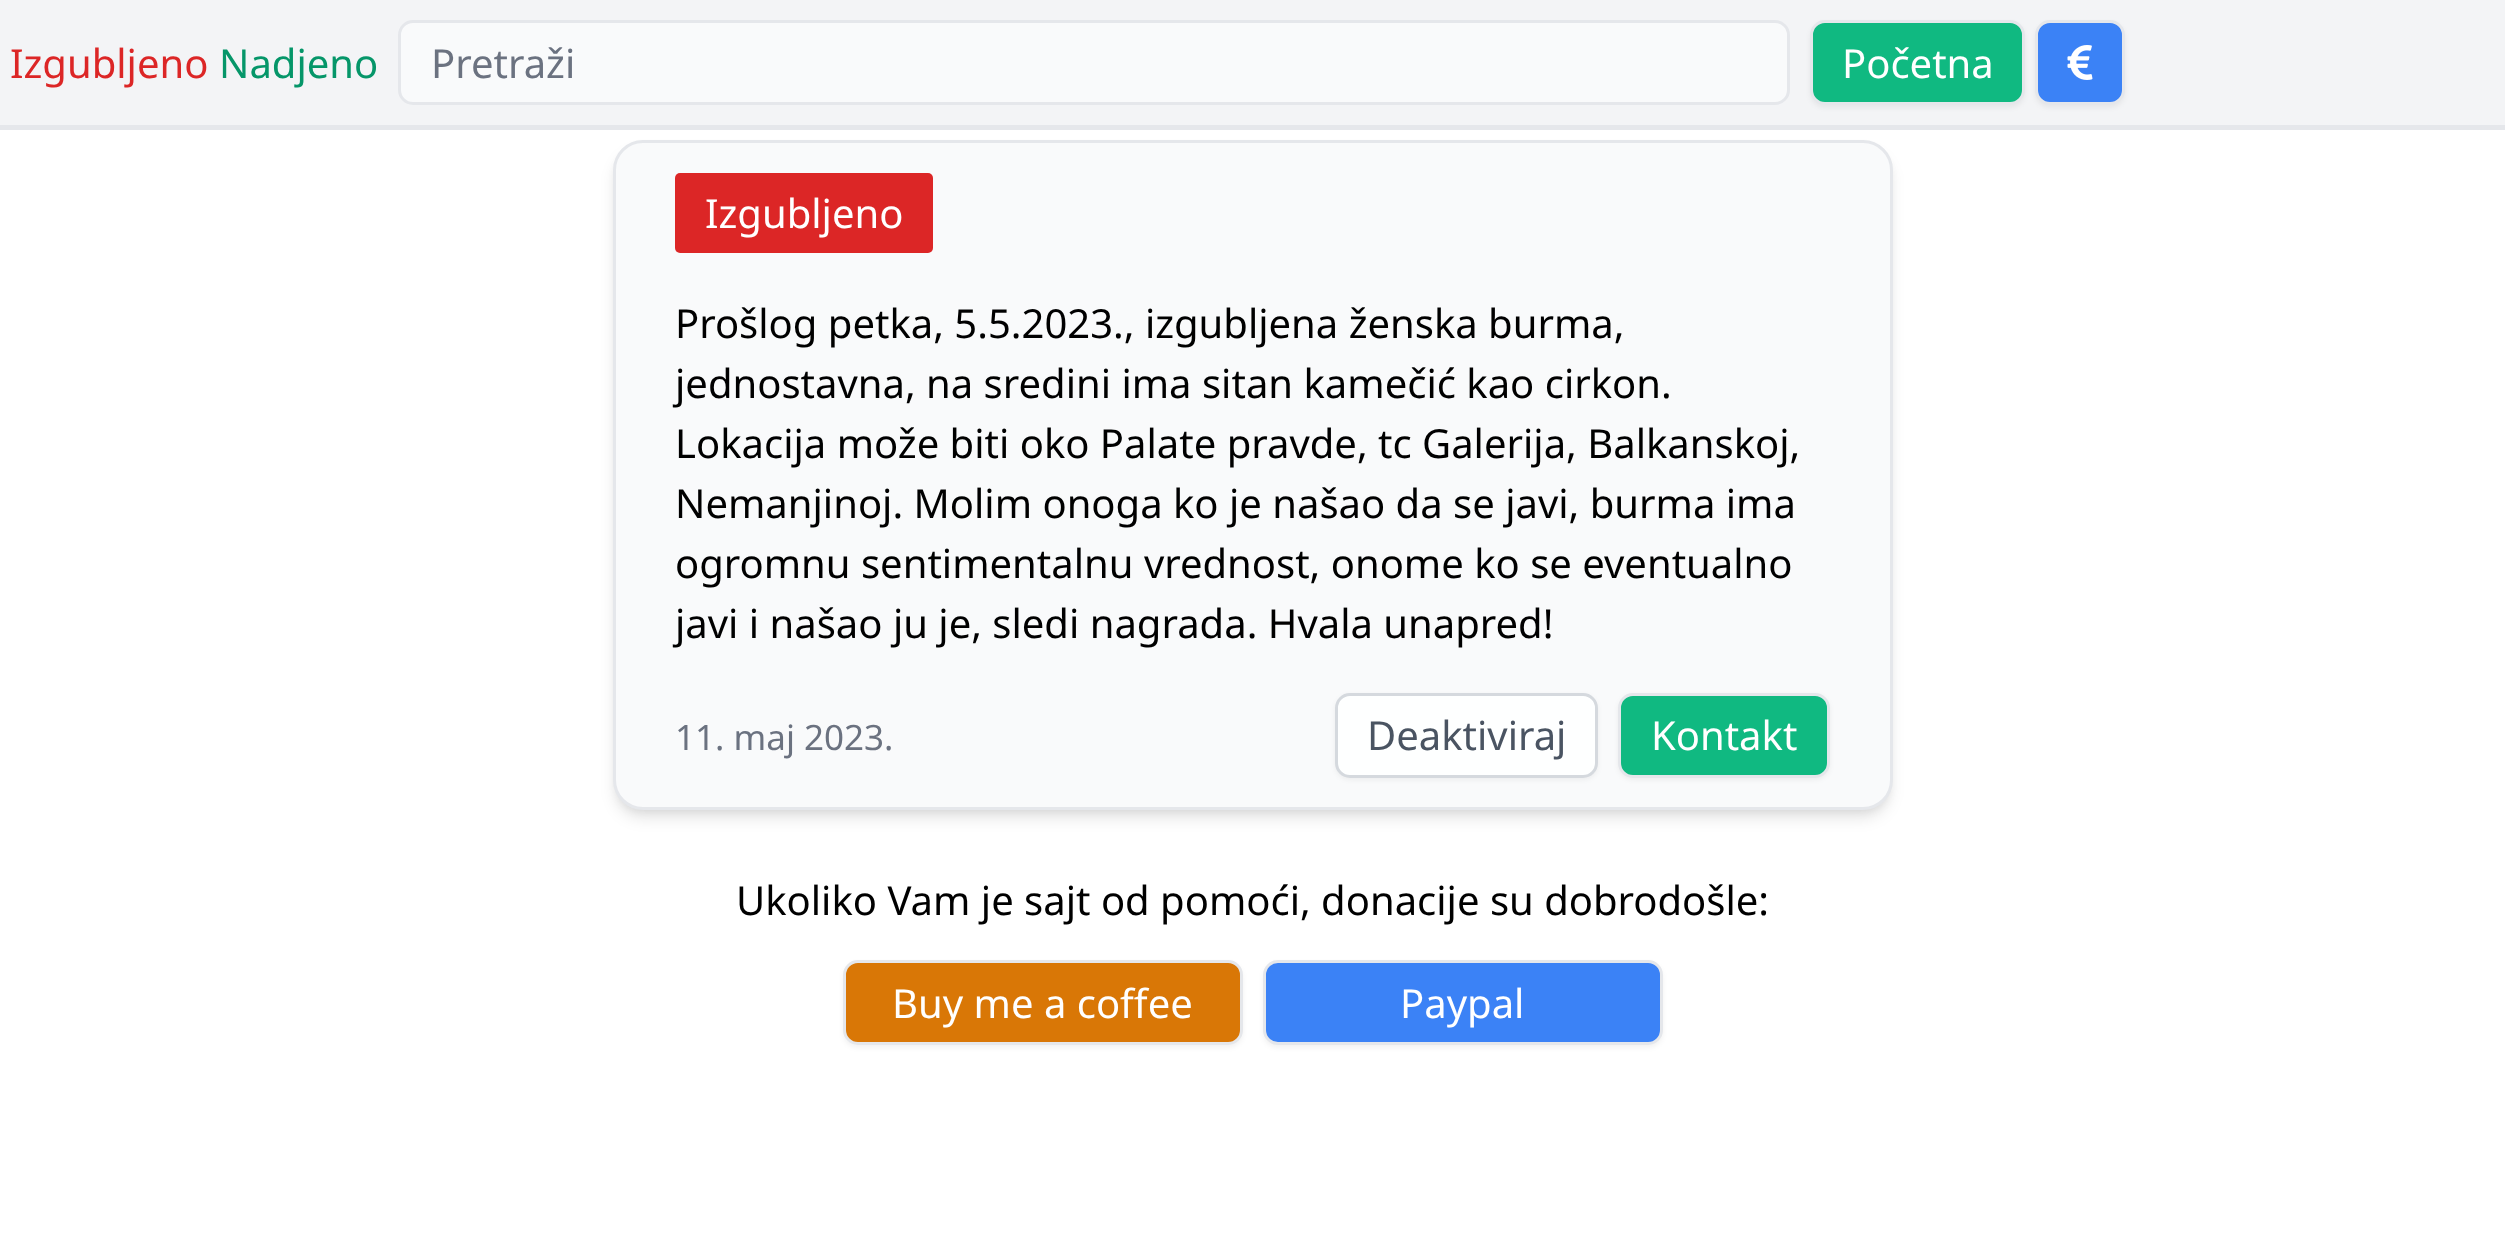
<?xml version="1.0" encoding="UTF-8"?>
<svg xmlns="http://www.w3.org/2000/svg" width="2505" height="1260">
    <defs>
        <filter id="blur1" x="-50%" y="-200%" width="200%" height="500%"><feGaussianBlur stdDeviation="7.5"/></filter>
        <filter id="blur2" x="-50%" y="-200%" width="200%" height="500%"><feGaussianBlur stdDeviation="2.5"/></filter>
        <filter id="blur3" x="-50%" y="-200%" width="200%" height="500%"><feGaussianBlur stdDeviation="5"/></filter>
    </defs>
    <rect width="100%" height="100%" fill="#FFFFFF"/>
    <rect x="0" y="0" width="2505" height="125" fill="#F3F4F6"/>
    <rect x="615" y="153" width="1275" height="665" rx="28" fill="#000000" fill-opacity="0.1" filter="url(#blur1)"/>
    <rect x="0" y="125" width="2505" height="5" fill="#E5E7EB"/>
    <text x="10" y="78" font-family="Noto Sans" font-size="40" fill="#DC2626">Izgubljeno</text>
    <text x="219" y="78" font-family="Noto Sans" font-size="40" fill="#059669">Nadjeno</text>
    <rect x="399.5" y="21.5" width="1389" height="82" rx="13.5" fill="#F9FAFB" stroke="#E5E7EB" stroke-width="3"/>
    <text x="431" y="78" font-family="Noto Sans" font-size="40" fill="#6B7280">Pretraži</text>
    <rect x="1810" y="23" width="215" height="85" rx="15" fill="#000000" fill-opacity="0.05" filter="url(#blur2)"/>
    <rect x="1811.5" y="21.5" width="212" height="82" rx="13.5" fill="#10B981" stroke="#E5E7EB" stroke-width="3"/>
    <text x="1842" y="78" font-family="Noto Sans" font-size="40" fill="#FFFFFF">Početna</text>
    <rect x="2035" y="23" width="90" height="85" rx="15" fill="#000000" fill-opacity="0.05" filter="url(#blur2)"/>
    <rect x="2036.5" y="21.5" width="87" height="82" rx="13.5" fill="#3B82F6" stroke="#E5E7EB" stroke-width="3"/>
    <image x="2067" y="45" width="26" height="35" href="img_01.png"/>
    <rect x="618" y="150" width="1270" height="660" rx="25" fill="#000000" fill-opacity="0.1" filter="url(#blur3)"/>
    <rect x="614.5" y="141.5" width="1277" height="667" rx="28.5" fill="#F9FAFB" stroke="#E5E7EB" stroke-width="3"/>
    <rect x="675" y="173" width="258" height="80" rx="5" fill="#DC2626"/>
    <text x="705" y="228" font-family="Noto Sans" font-size="40" fill="#FFFFFF">Izgubljeno</text>
    <text font-family="Noto Sans" font-size="40" fill="#000000">
        <tspan x="675" y="338">Prošlog petka, 5.5.2023., izgubljena ženska burma,</tspan>
        <tspan x="675" y="398">jednostavna, na sredini ima sitan kamečić kao cirkon.</tspan>
        <tspan x="675" y="458">Lokacija može biti oko Palate pravde, tc Galerija, Balkanskoj,</tspan>
        <tspan x="675" y="518">Nemanjinoj. Molim onoga ko je našao da se javi, burma ima</tspan>
        <tspan x="675" y="578">ogromnu sentimentalnu vrednost, onome ko se eventualno</tspan>
        <tspan x="675" y="638">javi i našao ju je, sledi nagrada. Hvala unapred!</tspan>
    </text>
    <text x="675" y="750" font-family="Noto Sans" font-size="35" fill="#6B7280">11. maj 2023.</text>
    <rect x="1335" y="695" width="263" height="85" rx="15" fill="#191919" fill-opacity="0.05" filter="url(#blur2)"/>
    <rect x="1336.5" y="694.5" width="260" height="82" rx="13.5" fill="#FEFFFF" stroke="#D5D9DE" stroke-width="3"/>
    <text x="1367" y="750" font-family="Noto Sans" font-size="40" fill="#4A5462">Deaktiviraj</text>
    <rect x="1618" y="695" width="212" height="85" rx="15" fill="#000000" fill-opacity="0.05" filter="url(#blur2)"/>
    <rect x="1619.5" y="694.5" width="209" height="82" rx="13.5" fill="#10B981" stroke="#E5E7EB" stroke-width="3"/>
    <text x="1651" y="750" font-family="Noto Sans" font-size="40" fill="#FFFFFF">Kontakt</text>
    <text x="736" y="915" font-family="Noto Sans" font-size="40" fill="#000000">Ukoliko Vam je sajt od pomoći, donacije su dobrodošle:</text>
    <rect x="843" y="963" width="400" height="85" rx="15" fill="#000000" fill-opacity="0.05" filter="url(#blur2)"/>
    <rect x="844.5" y="961.5" width="397" height="82" rx="13.5" fill="#D97706" stroke="#E5E7EB" stroke-width="3"/>
    <text x="892" y="1018" font-family="Noto Sans" font-size="40" fill="#FFFFFF">Buy me a coffee</text>
    <rect x="1263" y="963" width="400" height="85" rx="15" fill="#000000" fill-opacity="0.05" filter="url(#blur2)"/>
    <rect x="1264.5" y="961.5" width="397" height="82" rx="13.5" fill="#3B82F6" stroke="#E5E7EB" stroke-width="3"/>
    <text x="1400" y="1018" font-family="Noto Sans" font-size="40" fill="#FFFFFF">Paypal</text>
</svg>
